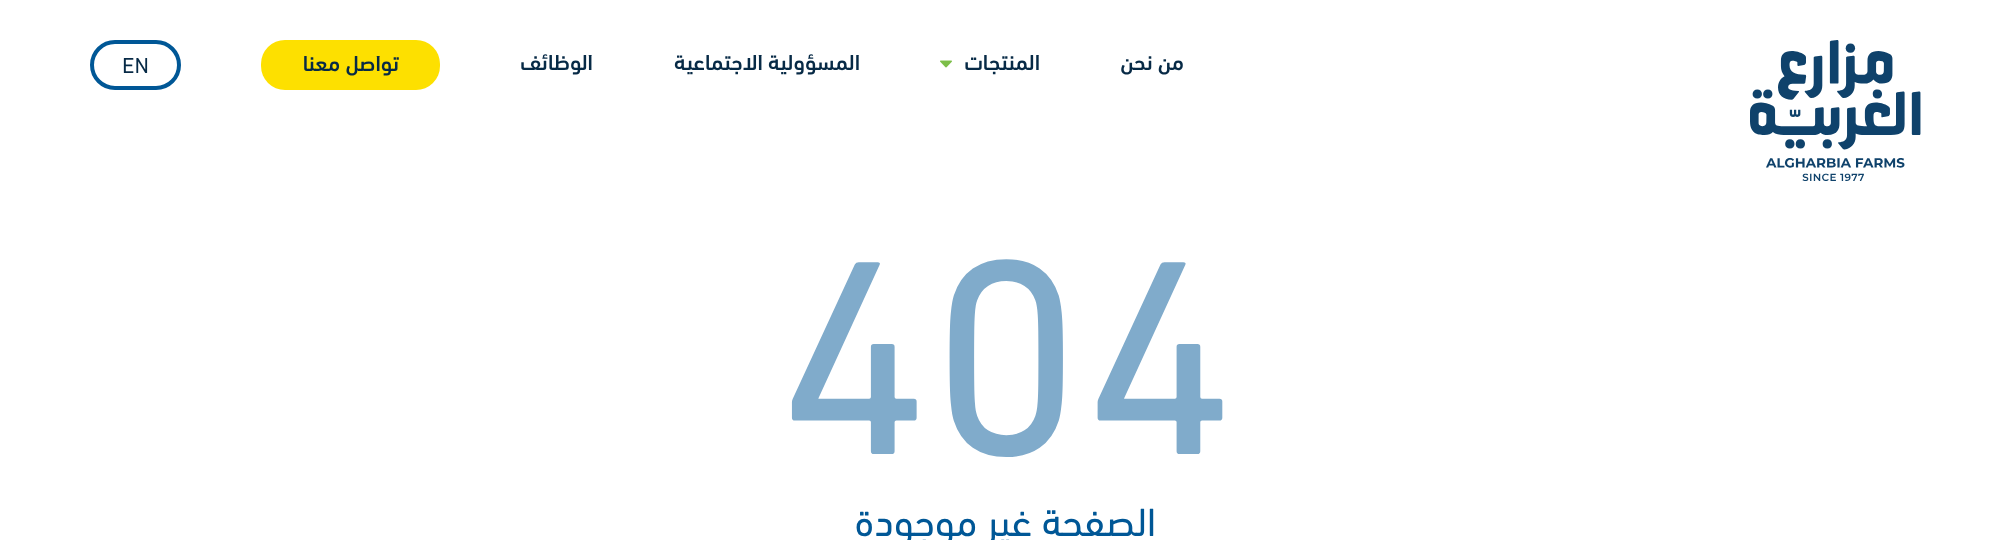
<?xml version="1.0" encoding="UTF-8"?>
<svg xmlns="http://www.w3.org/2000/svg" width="2011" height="540">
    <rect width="100%" height="100%" fill="#FFFFFF"/>
    <image x="1750" y="40" width="171" height="141" href="img_01.png"/>
    <text x="1184" y="70" font-family="'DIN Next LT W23'" font-size="22.1" font-weight="500" direction="rtl" fill="#072A46">من نحن</text>
    <text x="1040" y="70" font-family="'DIN Next LT W23'" font-size="22.1" font-weight="500" direction="rtl" fill="#072A46">المنتجات</text>
    <image x="940" y="60" width="12" height="8" href="img_02.png"/>
    <text x="860" y="70" font-family="'DIN Next LT W23'" font-size="22.1" font-weight="500" direction="rtl" fill="#072A46">المسؤولية الاجتماعية</text>
    <text x="593" y="70" font-family="'DIN Next LT W23'" font-size="22.1" font-weight="500" direction="rtl" fill="#072A46">الوظائف</text>
    <rect x="261" y="40" width="179" height="50" rx="24" fill="#FDE000"/>
    <text x="399" y="71" font-family="'DIN Next LT W23'" font-size="22.1" font-weight="500" direction="rtl" fill="#072A46">تواصل معنا</text>
    <rect x="92" y="42" width="87" height="46" rx="23" fill="none" stroke="#005796" stroke-width="4"/>
    <text x="122" y="73" font-family="'DIN Next LT W23'" font-size="22.1" fill="#072A46">EN</text>
    <text x="777" y="454" font-family="'DIN Next LT W23'" font-size="282" fill="#80ABCB">404</text>
    <text x="1156" y="536" font-family="'DIN Next LT W23'" font-size="40.25" direction="rtl" fill="#005796">الصفحة غير موجودة</text>
</svg>
